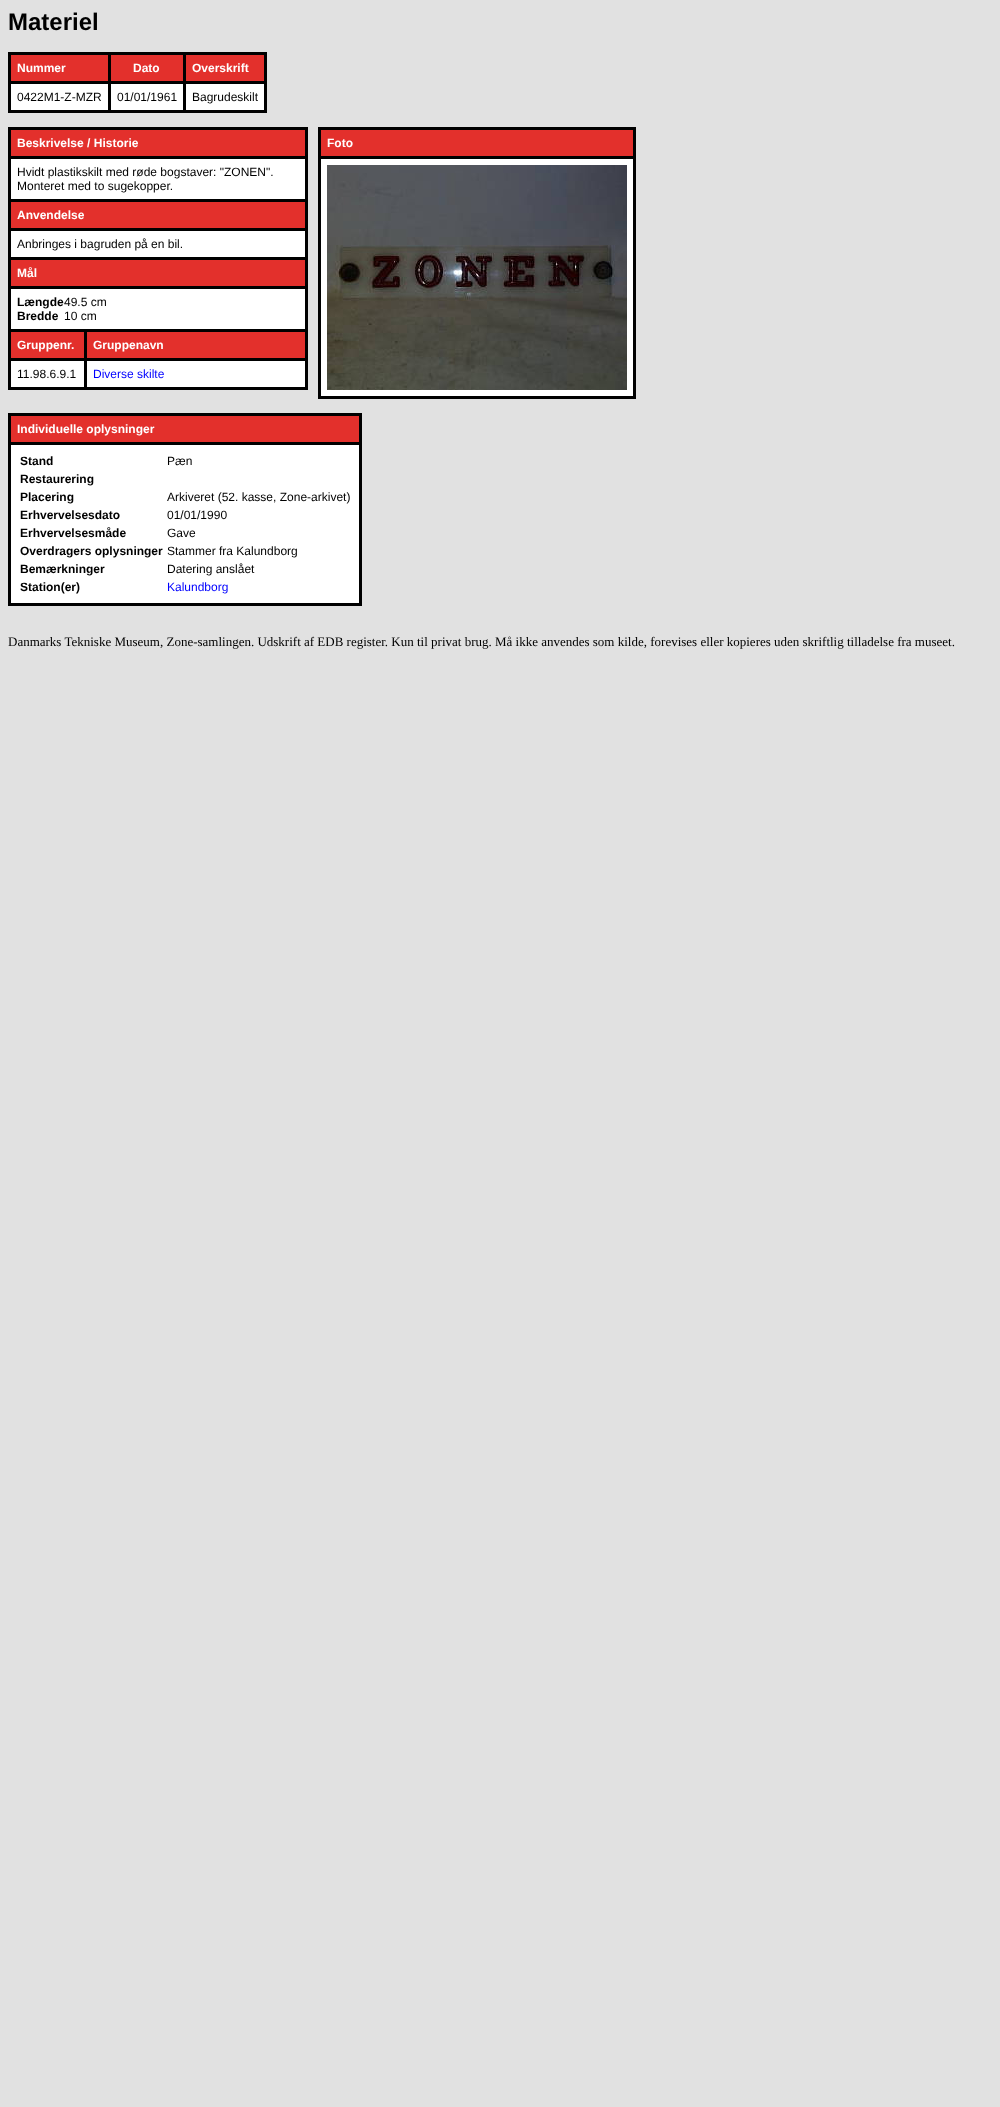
<?xml version="1.0" encoding="UTF-8"?>
<svg xmlns="http://www.w3.org/2000/svg" width="1000" height="2107">
    <rect width="100%" height="100%" fill="#E1E1E1"/>
    <text x="8" y="30" font-family="Liberation Sans" font-size="24" font-weight="700" fill="#000000">Materiel</text>
    <rect x="8" y="52" width="259" height="61" fill="#000000"/>
    <rect x="11" y="55" width="97" height="26" fill="#E3302C"/>
    <text x="17" y="72" font-family="Liberation Sans" font-size="12" font-weight="700" fill="#FFFFFF">Nummer</text>
    <rect x="111" y="55" width="72" height="26" fill="#E3302C"/>
    <text x="133" y="72" font-family="Liberation Sans" font-size="12" font-weight="700" fill="#FFFFFF">Dato</text>
    <rect x="186" y="55" width="78" height="26" fill="#E3302C"/>
    <text x="192" y="72" font-family="Liberation Sans" font-size="12" font-weight="700" fill="#FFFFFF">Overskrift</text>
    <rect x="11" y="84" width="97" height="26" fill="#FFFFFF"/>
    <text x="17" y="101" font-family="Liberation Sans" font-size="12" fill="#000000">0422M1-Z-MZR</text>
    <rect x="111" y="84" width="72" height="26" fill="#FFFFFF"/>
    <text x="117" y="101" font-family="Liberation Sans" font-size="12" fill="#000000">01/01/1961</text>
    <rect x="186" y="84" width="78" height="26" fill="#FFFFFF"/>
    <text x="192" y="101" font-family="Liberation Sans" font-size="12" fill="#000000">Bagrudeskilt</text>
    <rect x="8" y="127" width="300" height="263" fill="#000000"/>
    <rect x="11" y="130" width="294" height="26" fill="#E3302C"/>
    <text x="17" y="147" font-family="Liberation Sans" font-size="12" font-weight="700" fill="#FFFFFF">Beskrivelse / Historie</text>
    <rect x="11" y="159" width="294" height="40" fill="#FFFFFF"/>
    <text font-family="Liberation Sans" font-size="12" fill="#000000">
        <tspan x="17" y="176">Hvidt plastikskilt med røde bogstaver: "ZONEN".</tspan>
        <tspan x="17" y="190">Monteret med to sugekopper.</tspan>
    </text>
    <rect x="11" y="202" width="294" height="26" fill="#E3302C"/>
    <text x="17" y="219" font-family="Liberation Sans" font-size="12" font-weight="700" fill="#FFFFFF">Anvendelse</text>
    <rect x="11" y="231" width="294" height="26" fill="#FFFFFF"/>
    <text x="17" y="248" font-family="Liberation Sans" font-size="12" fill="#000000">Anbringes i bagruden på en bil.</text>
    <rect x="11" y="260" width="294" height="26" fill="#E3302C"/>
    <text x="17" y="277" font-family="Liberation Sans" font-size="12" font-weight="700" fill="#FFFFFF">Mål</text>
    <rect x="11" y="289" width="294" height="40" fill="#FFFFFF"/>
    <text x="17" y="306" font-family="Liberation Sans" font-size="12" font-weight="700" fill="#000000">Længde</text>
    <text x="64" y="306" font-family="Liberation Sans" font-size="12" fill="#000000">49.5 cm</text>
    <text x="17" y="320" font-family="Liberation Sans" font-size="12" font-weight="700" fill="#000000">Bredde</text>
    <text x="64" y="320" font-family="Liberation Sans" font-size="12" fill="#000000">10 cm</text>
    <rect x="11" y="332" width="73" height="26" fill="#E3302C"/>
    <text x="17" y="349" font-family="Liberation Sans" font-size="12" font-weight="700" fill="#FFFFFF">Gruppenr.</text>
    <rect x="87" y="332" width="218" height="26" fill="#E3302C"/>
    <text x="93" y="349" font-family="Liberation Sans" font-size="12" font-weight="700" fill="#FFFFFF">Gruppenavn</text>
    <rect x="11" y="361" width="73" height="26" fill="#FFFFFF"/>
    <text x="17" y="378" font-family="Liberation Sans" font-size="12" fill="#000000">11.98.6.9.1</text>
    <rect x="87" y="361" width="218" height="26" fill="#FFFFFF"/>
    <text x="93" y="378" font-family="Liberation Sans" font-size="12" fill="#0000FF">Diverse skilte</text>
    <rect x="318" y="127" width="318" height="272" fill="#000000"/>
    <rect x="321" y="130" width="312" height="26" fill="#E3302C"/>
    <text x="327" y="147" font-family="Liberation Sans" font-size="12" font-weight="700" fill="#FFFFFF">Foto</text>
    <rect x="321" y="159" width="312" height="237" fill="#FFFFFF"/>
    <image x="327" y="165" width="300" height="225" href="img_01.png"/>
    <rect x="8" y="413" width="354" height="193" fill="#000000"/>
    <rect x="11" y="416" width="348" height="26" fill="#E3302C"/>
    <text x="17" y="433" font-family="Liberation Sans" font-size="12" font-weight="700" fill="#FFFFFF">Individuelle oplysninger</text>
    <rect x="11" y="445" width="348" height="158" fill="#FFFFFF"/>
    <text x="20" y="465" font-family="Liberation Sans" font-size="12" font-weight="700" fill="#000000">Stand</text>
    <text x="167" y="465" font-family="Liberation Sans" font-size="12" fill="#000000">Pæn</text>
    <text font-family="Liberation Sans" font-size="12" font-weight="700" fill="#000000">
        <tspan x="20" y="483">Restaurering</tspan>
        <tspan x="20" y="501">Placering</tspan>
    </text>
    <text x="167" y="501" font-family="Liberation Sans" font-size="12" fill="#000000">Arkiveret (52. kasse, Zone-arkivet)</text>
    <text x="20" y="519" font-family="Liberation Sans" font-size="12" font-weight="700" fill="#000000">Erhvervelsesdato</text>
    <text x="167" y="519" font-family="Liberation Sans" font-size="12" fill="#000000">01/01/1990</text>
    <text x="20" y="537" font-family="Liberation Sans" font-size="12" font-weight="700" fill="#000000">Erhvervelsesmåde</text>
    <text x="167" y="537" font-family="Liberation Sans" font-size="12" fill="#000000">Gave</text>
    <text x="20" y="555" font-family="Liberation Sans" font-size="12" font-weight="700" fill="#000000">Overdragers oplysninger</text>
    <text x="167" y="555" font-family="Liberation Sans" font-size="12" fill="#000000">Stammer fra Kalundborg</text>
    <text x="20" y="573" font-family="Liberation Sans" font-size="12" font-weight="700" fill="#000000">Bemærkninger</text>
    <text x="167" y="573" font-family="Liberation Sans" font-size="12" fill="#000000">Datering anslået</text>
    <text x="20" y="591" font-family="Liberation Sans" font-size="12" font-weight="700" fill="#000000">Station(er)</text>
    <text x="167" y="591" font-family="Liberation Sans" font-size="12" fill="#0000FF">Kalundborg</text>
    <text x="8" y="646" font-family="Liberation Serif" font-size="13" fill="#000000">Danmarks Tekniske Museum, Zone-samlingen. Udskrift af EDB register. Kun til privat brug. Må ikke anvendes som kilde, forevises eller kopieres uden skriftlig tilladelse fra museet.</text>
</svg>
